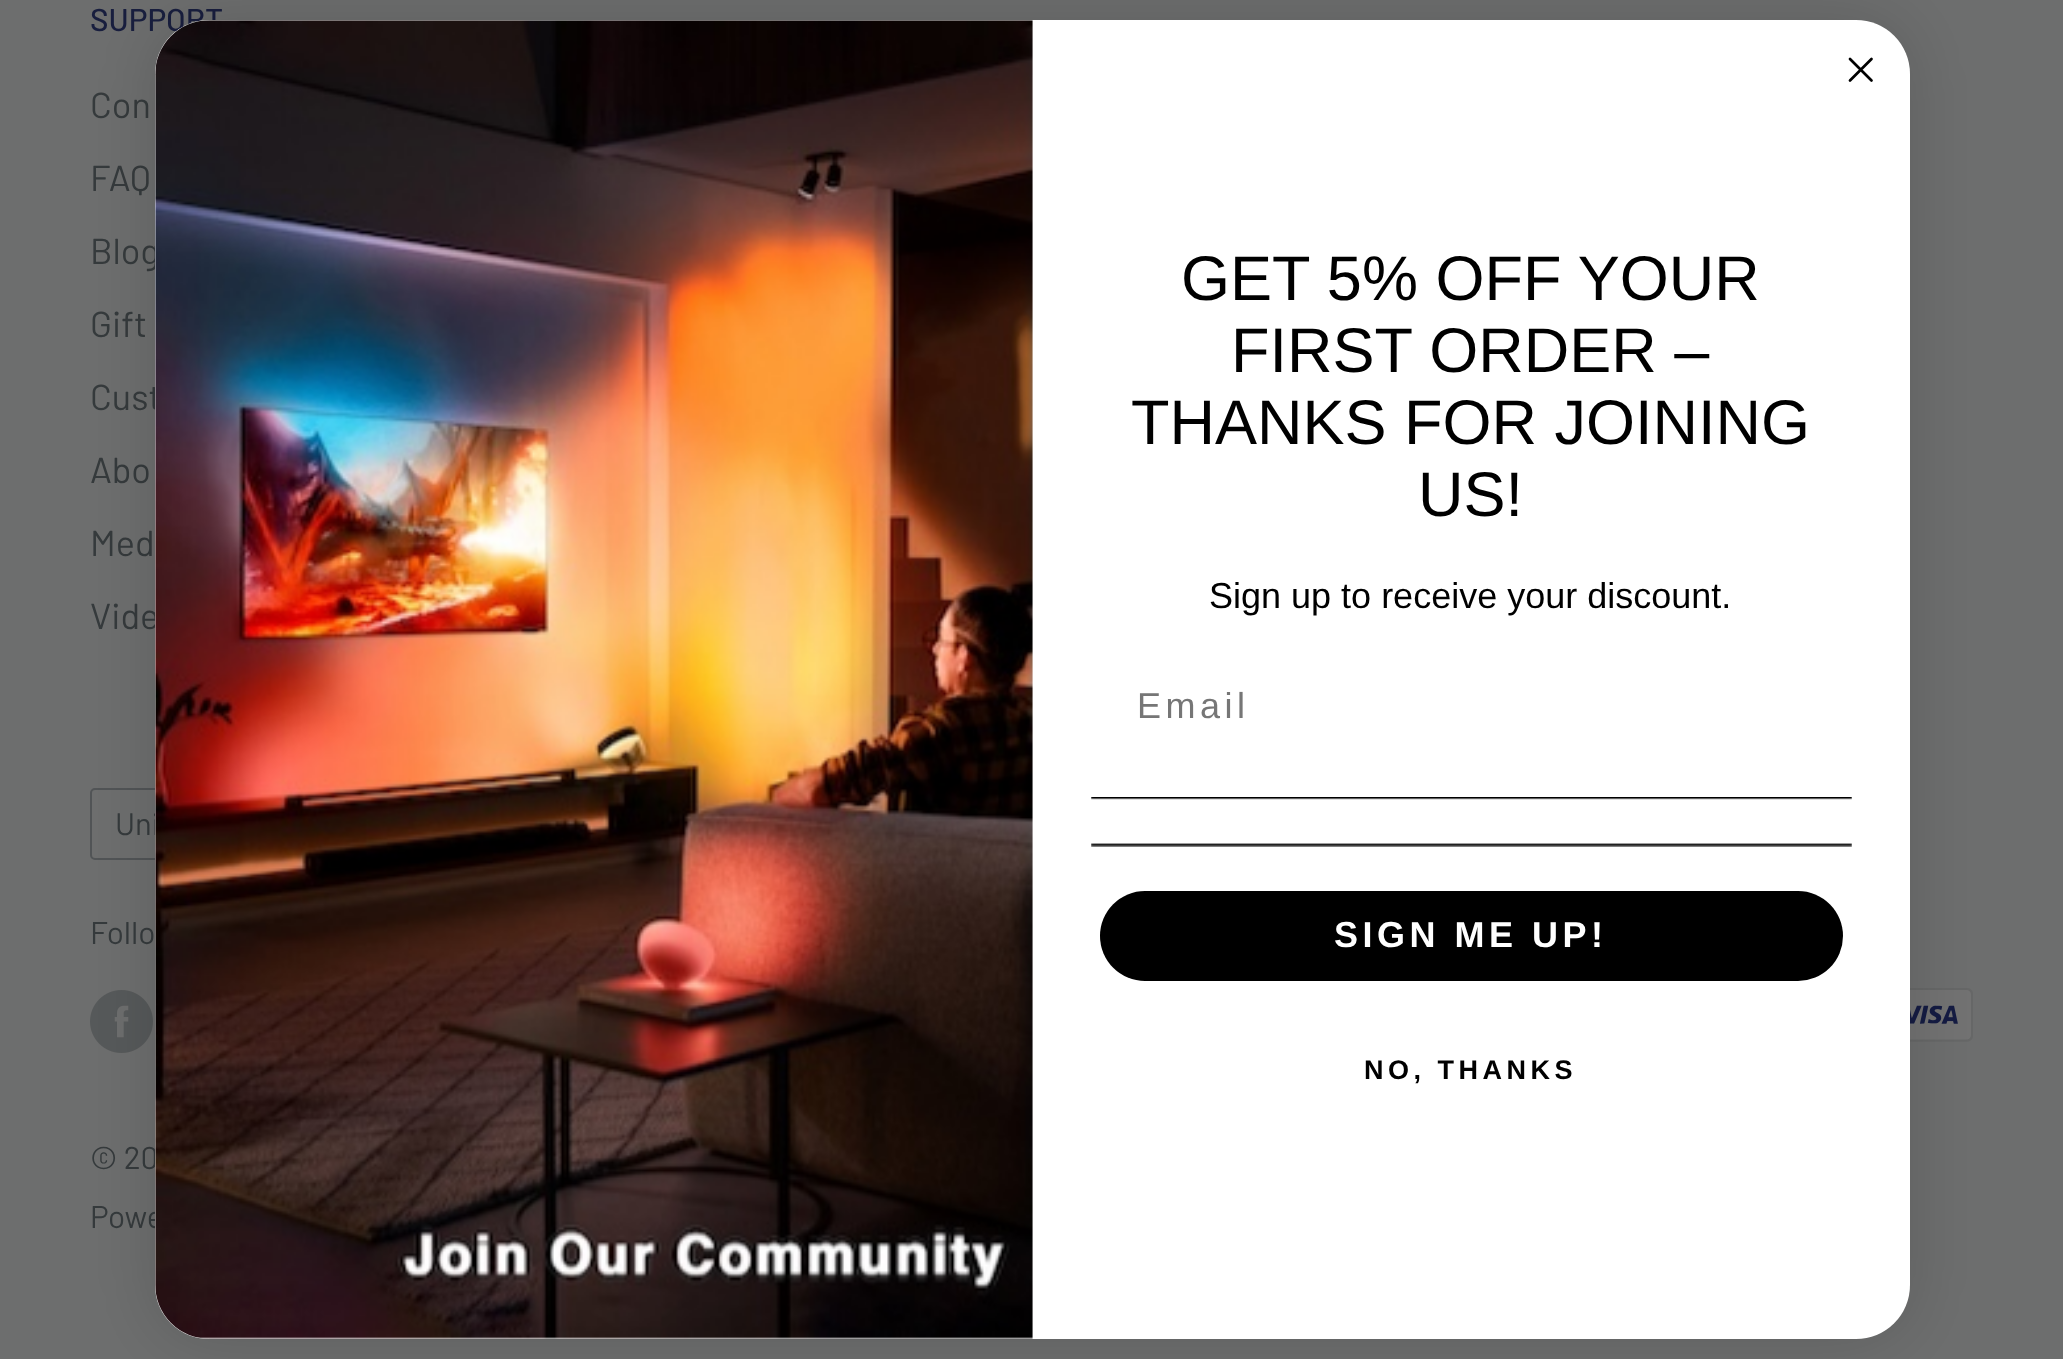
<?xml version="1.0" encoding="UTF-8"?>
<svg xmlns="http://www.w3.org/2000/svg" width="2063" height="1359">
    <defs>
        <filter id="blur1" x="-50%" y="-200%" width="200%" height="500%"><feGaussianBlur stdDeviation="34"/></filter>
    </defs>
    <rect width="100%" height="100%" fill="#6D6E6E"/>
    <text x="90" y="31" font-family="Barlow" font-size="31.5" font-weight="500" fill="#181E3E">SUPPORT</text>
    <text x="90" y="118" font-family="Barlow" font-size="36" fill="#353A3C">Con</text>
    <text x="90" y="191" font-family="Barlow" font-size="36" fill="#353A3C">FAQ</text>
    <text x="90" y="264" font-family="Barlow" font-size="36" fill="#353A3C">Blog</text>
    <text x="90" y="337" font-family="Barlow" font-size="36" fill="#353A3C">Gift</text>
    <text x="90" y="410" font-family="Barlow" font-size="36" fill="#353A3C">Cust</text>
    <text x="90" y="483" font-family="Barlow" font-size="36" fill="#353A3C">Abo</text>
    <text x="90" y="556" font-family="Barlow" font-size="36" fill="#353A3C">Med</text>
    <text x="90" y="629" font-family="Barlow" font-size="36" fill="#353A3C">Vide</text>
    <rect x="91" y="789" width="405" height="70" rx="4" fill="none" stroke="#515456" stroke-width="2"/>
    <text x="115" y="835" font-family="Barlow" font-size="31" fill="#353A3C">Uni</text>
    <text x="90" y="944" font-family="Barlow" font-size="31.5" fill="#353A3C">Follo</text>
    <image x="90" y="990" width="63" height="63" href="img_01.png"/>
    <image x="1910" y="988" width="63" height="54" href="img_02.png"/>
    <text font-family="Barlow" font-size="31.5" fill="#353A3C">
        <tspan x="90" y="1169">© 20</tspan>
        <tspan x="90" y="1228">Powe</tspan>
    </text>
    <rect x="155" y="20" width="1755" height="1319" rx="54" fill="#000000" fill-opacity="0.15" filter="url(#blur1)"/>
    <rect x="155" y="20" width="1755" height="1319" rx="54" fill="#FFFFFF"/>
    <path d="M 1850 59 L 1871.5 80.5 M 1850 80.5 L 1871.5 59 Z" fill="none" stroke="#000000" stroke-width="2.7" stroke-linecap="round" stroke-linejoin="round"/>
    <image x="155" y="20" width="878" height="1319" href="img_03.png"/>
    <text x="1181" y="300" font-family="Liberation Sans" font-size="63" fill="#000000">GET 5% OFF YOUR</text>
    <text x="1231" y="372" font-family="Liberation Sans" font-size="63" fill="#000000">FIRST ORDER –</text>
    <text x="1131" y="444" font-family="Liberation Sans" font-size="63" fill="#000000">THANKS FOR JOINING</text>
    <text x="1418" y="516" font-family="Liberation Sans" font-size="63" fill="#000000">US!</text>
    <text x="1209" y="608" font-family="Liberation Sans" font-size="36" fill="#000000">Sign up to receive your discount.</text>
    <text x="1137" y="718" font-family="Liberation Sans" font-size="36" letter-spacing="4.5" fill="#767676">Email</text>
    <image x="1091" y="797" width="761" height="3" href="img_04.png"/>
    <image x="1091" y="843" width="761" height="4" href="img_05.png"/>
    <rect x="1100" y="891" width="743" height="90" rx="45" fill="#000000"/>
    <text x="1334" y="947" font-family="Liberation Sans" font-size="36" font-weight="700" letter-spacing="4.5" fill="#FFFFFF">SIGN ME UP!</text>
    <text x="1364" y="1079" font-family="Liberation Sans" font-size="27" font-weight="700" letter-spacing="4.5" fill="#000000">NO, THANKS</text>
</svg>
